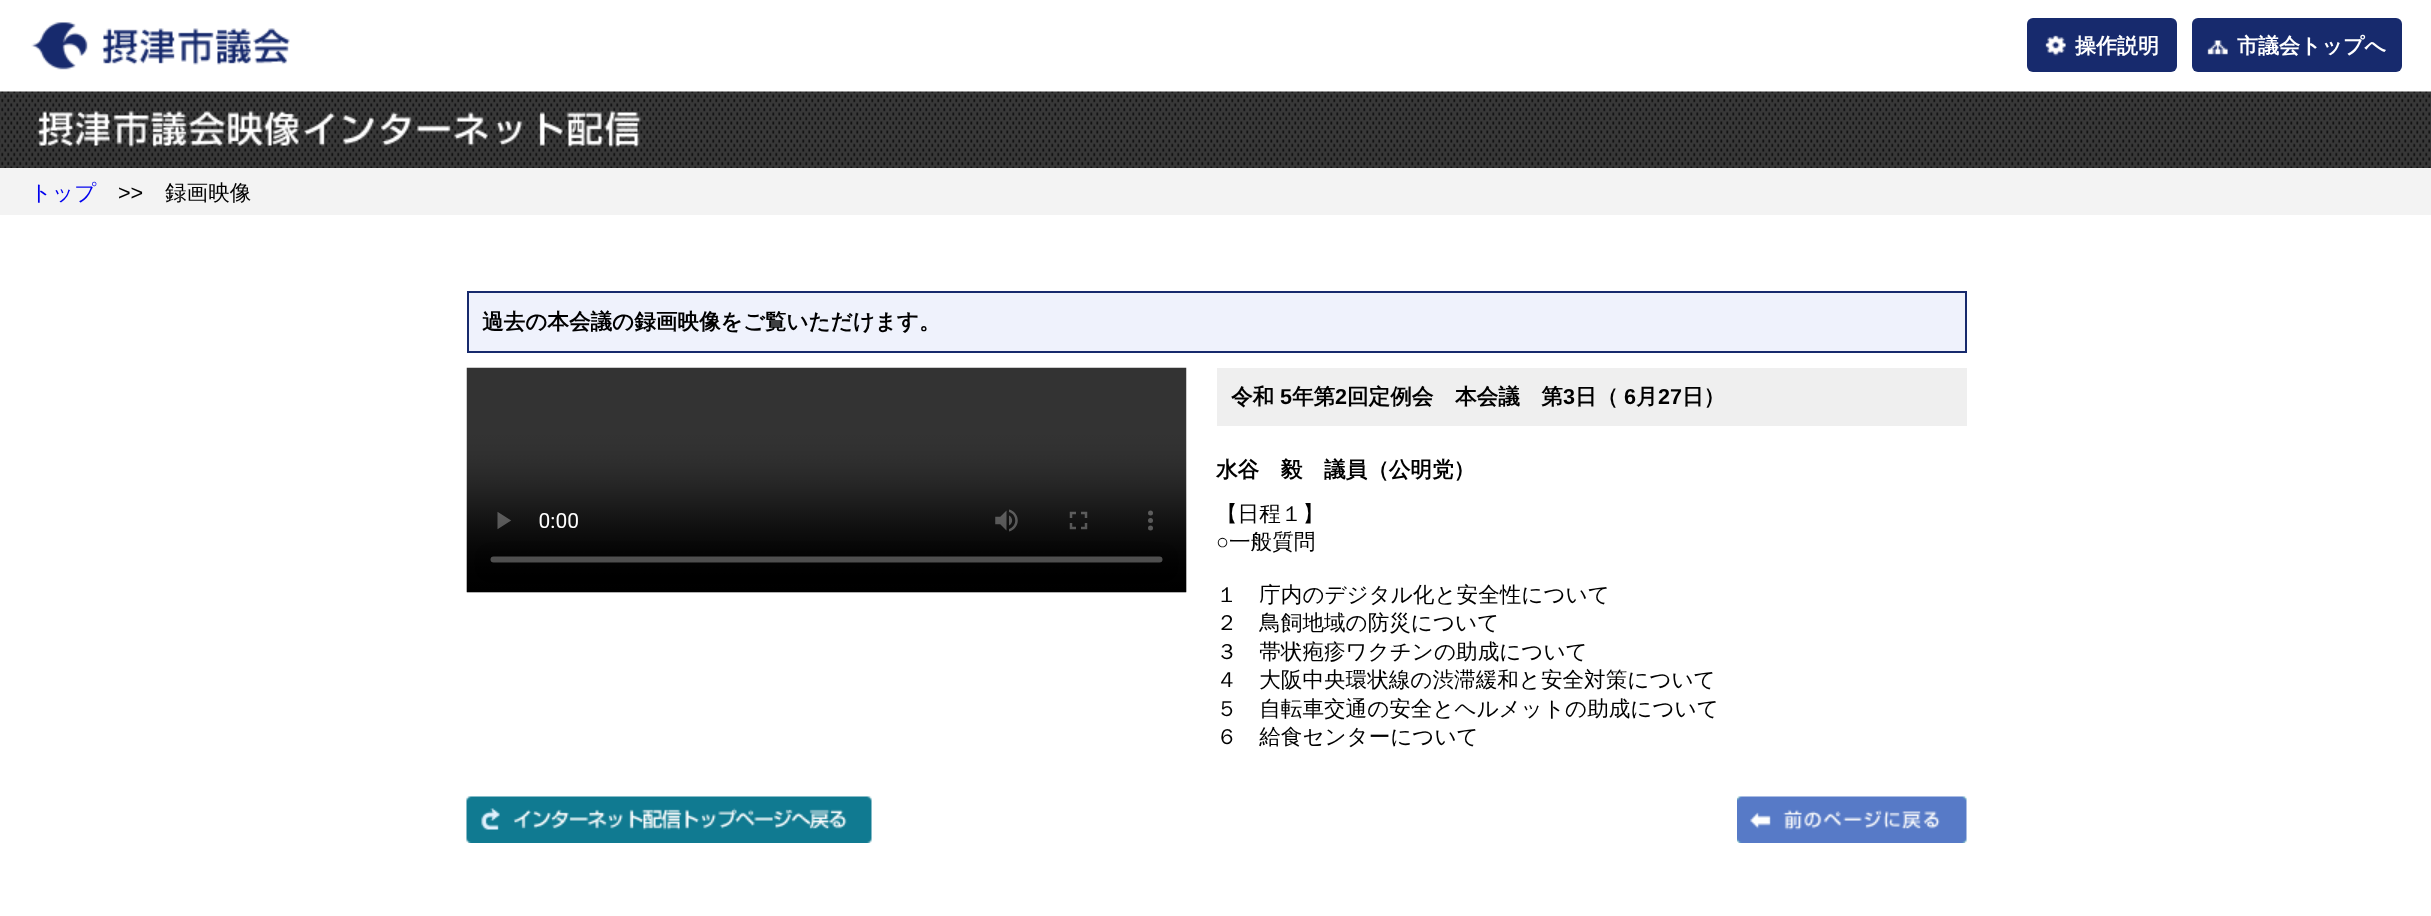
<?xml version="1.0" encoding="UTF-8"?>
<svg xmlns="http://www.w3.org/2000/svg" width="2431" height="916">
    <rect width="100%" height="100%" fill="#FFFFFF"/>
    <image x="31" y="22" width="259" height="48" href="img_01.png"/>
    <rect x="2027" y="18" width="150" height="54" rx="6" fill="#172A6D"/>
    <image x="2045" y="35" width="21" height="21" href="img_02.png"/>
    <text x="2075" y="53" font-family="WenQuanYi Zen Hei" font-size="21" font-weight="700" fill="#FFFFFF">操作説明</text>
    <rect x="2192" y="18" width="210" height="54" rx="6" fill="#172A6D"/>
    <image x="2207" y="40" width="21" height="15" href="img_03.png"/>
    <text x="2237" y="53" font-family="WenQuanYi Zen Hei" font-size="21" font-weight="700" fill="#FFFFFF">市議会トップへ</text>
    <image x="0" y="91" width="2431" height="77" href="img_04.png"/>
    <image x="37" y="110" width="604" height="38" href="img_05.png"/>
    <rect x="0" y="168" width="2431" height="47" fill="#F3F3F3"/>
    <text x="30" y="200" font-family="WenQuanYi Zen Hei" font-size="21.6" font-weight="500" fill="#0000EE">トップ</text>
    <text x="118" y="200" font-family="Liberation Sans" font-size="21.6" fill="#000000">&gt;&gt;</text>
    <text x="165" y="200" font-family="WenQuanYi Zen Hei" font-size="21.6" font-weight="500" fill="#000000">録画映像</text>
    <rect x="468" y="292" width="1498" height="60" fill="#EFF2FC" stroke="#172A6D" stroke-width="2"/>
    <text x="482" y="329" font-family="WenQuanYi Zen Hei" font-size="21.6" font-weight="700" fill="#000000">過去の本会議の録画映像をご覧いただけます。</text>
    <image x="466" y="367" width="721" height="226" href="img_06.png"/>
    <rect x="1217" y="368" width="750" height="58" fill="#EFEFEF"/>
    <text x="1231" y="404" font-family="WenQuanYi Zen Hei" font-size="21.6" font-weight="700" fill="#000000">令和</text>
    <text x="1280" y="404" font-family="Liberation Sans" font-size="21.6" font-weight="700" fill="#000000">5</text>
    <text x="1292" y="404" font-family="WenQuanYi Zen Hei" font-size="21.6" font-weight="700" fill="#000000">年第</text>
    <text x="1335" y="404" font-family="Liberation Sans" font-size="21.6" font-weight="700" fill="#000000">2</text>
    <text x="1347" y="404" font-family="WenQuanYi Zen Hei" font-size="21.6" font-weight="700" fill="#000000">回定例会　本会議　第</text>
    <text x="1563" y="404" font-family="Liberation Sans" font-size="21.6" font-weight="700" fill="#000000">3</text>
    <text x="1575" y="404" font-family="WenQuanYi Zen Hei" font-size="21.6" font-weight="700" fill="#000000">日（</text>
    <text x="1624" y="404" font-family="Liberation Sans" font-size="21.6" font-weight="700" fill="#000000">6</text>
    <text x="1636" y="404" font-family="WenQuanYi Zen Hei" font-size="21.6" font-weight="700" fill="#000000">月</text>
    <text x="1658" y="404" font-family="Liberation Sans" font-size="21.6" font-weight="700" fill="#000000">27</text>
    <text x="1682" y="404" font-family="WenQuanYi Zen Hei" font-size="21.6" font-weight="700" fill="#000000">日）</text>
    <text x="1216" y="477" font-family="WenQuanYi Zen Hei" font-size="21.6" font-weight="700" fill="#000000">水谷　毅　議員（公明党）</text>
    <text x="1216" y="521" font-family="WenQuanYi Zen Hei" font-size="21.6" font-weight="500" fill="#000000">【日程１】</text>
    <text x="1216" y="549" font-family="Liberation Sans" font-size="21.6" fill="#000000">○</text>
    <text x="1229" y="549" font-family="WenQuanYi Zen Hei" font-size="21.6" font-weight="500" fill="#000000">一般質問</text>
    <text font-family="WenQuanYi Zen Hei" font-size="21.6" font-weight="500" fill="#000000">
        <tspan x="1216" y="602">１　庁内のデジタル化と安全性について</tspan>
        <tspan x="1216" y="630">２　鳥飼地域の防災について</tspan>
        <tspan x="1216" y="659">３　帯状疱疹ワクチンの助成について</tspan>
        <tspan x="1216" y="687">４　大阪中央環状線の渋滞緩和と安全対策について</tspan>
        <tspan x="1216" y="716">５　自転車交通の安全とヘルメットの助成について</tspan>
        <tspan x="1216" y="744">６　給食センターについて</tspan>
    </text>
    <image x="466" y="796" width="406" height="47" href="img_07.png"/>
    <image x="1737" y="796" width="230" height="47" href="img_08.png"/>
</svg>
